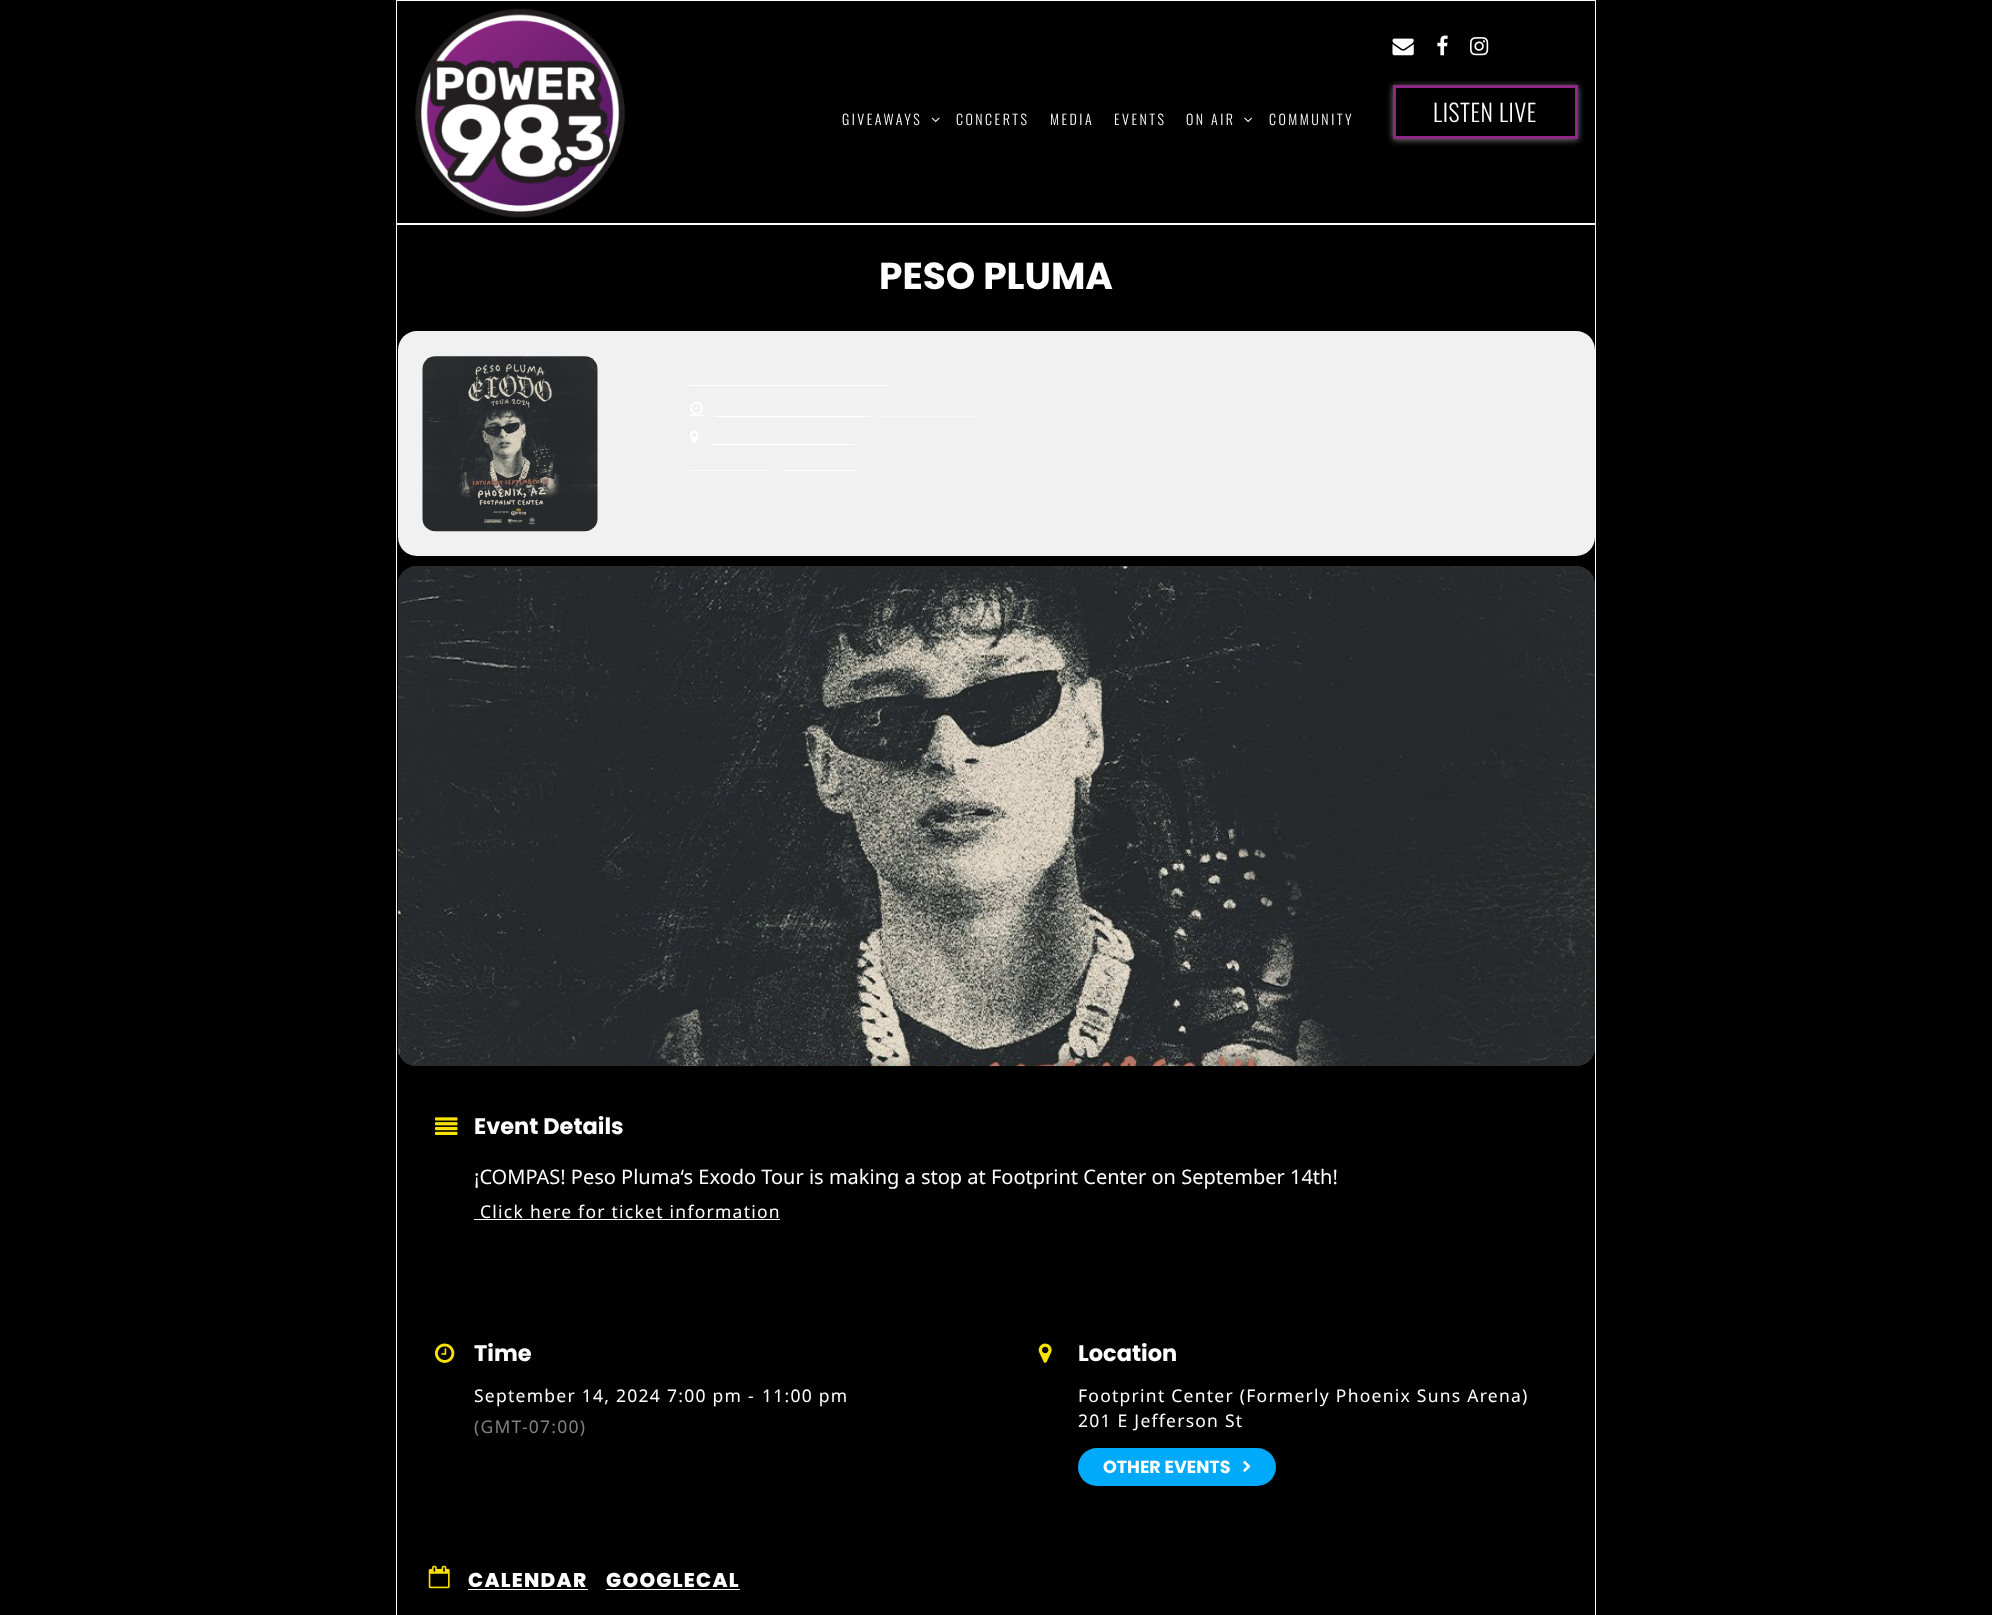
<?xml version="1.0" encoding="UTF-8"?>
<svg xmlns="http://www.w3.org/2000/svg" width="1992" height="1615">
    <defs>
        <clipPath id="clip1"><path d="M 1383 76 H 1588 V 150 H 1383 Z M 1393 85 H 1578 V 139 H 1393 Z" clip-rule="evenodd"/></clipPath>
        <filter id="blur1" x="-50%" y="-200%" width="200%" height="500%"><feGaussianBlur stdDeviation="3"/></filter>
    </defs>
    <rect width="100%" height="100%" fill="#000000"/>
    <rect x="396.5" y="0.5" width="1199" height="223" fill="none" stroke="#FFFFFF"/>
    <image x="415" y="8" width="210" height="210" href="img_01.png"/>
    <text x="842" y="125" font-family="Oswald" font-size="14" font-weight="300" letter-spacing="2.5" fill="#FFFFFF">GIVEAWAYS</text>
    <image x="931" y="117" width="9" height="6" href="img_02.png"/>
    <text x="956" y="125" font-family="Oswald" font-size="14" font-weight="300" letter-spacing="2.5" fill="#FFFFFF">CONCERTS</text>
    <text x="1050" y="125" font-family="Oswald" font-size="14" font-weight="300" letter-spacing="2.5" fill="#FFFFFF">MEDIA</text>
    <text x="1114" y="125" font-family="Oswald" font-size="14" font-weight="300" letter-spacing="2.5" fill="#FFFFFF">EVENTS</text>
    <text x="1186" y="125" font-family="Oswald" font-size="14" font-weight="300" letter-spacing="2.5" fill="#FFFFFF">ON AIR</text>
    <image x="1244" y="117" width="8" height="6" href="img_03.png"/>
    <text x="1269" y="125" font-family="Oswald" font-size="14" font-weight="300" letter-spacing="2.5" fill="#FFFFFF">COMMUNITY</text>
    <image x="1392" y="38" width="22" height="18" href="img_04.png"/>
    <image x="1437" y="35" width="11" height="21" href="img_05.png"/>
    <image x="1470" y="37" width="19" height="19" href="img_06.png"/>
    <g clip-path="url(#clip1)">
        <rect x="1393" y="86" width="185" height="54" fill="#777777" filter="url(#blur1)"/>
    </g>
    <rect x="1394.5" y="86.5" width="182" height="51" fill="none" stroke="#8E2785" stroke-width="3"/>
    <text x="1433" y="122" font-family="Oswald" font-size="23.75" font-weight="300" letter-spacing="0.6" fill="#FFFFFF">LISTEN LIVE</text>
    <rect x="396.5" y="224.5" width="1199" height="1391" fill="none" stroke="#FFFFFF"/>
    <text x="879" y="289" font-family="Poppins" font-size="37.5" font-weight="700" fill="#FFFFFF">PESO PLUMA</text>
    <rect x="398" y="331" width="1197" height="225" rx="19" fill="#F1F1F1"/>
    <image x="422" y="356" width="176" height="176" href="img_07.png"/>
    <rect x="689" y="385" width="201" height="1" fill="#FFFFFF"/>
    <image x="690" y="402" width="13" height="13" href="img_08.png"/>
    <rect x="690" y="415" width="14" height="1" fill="#FFFFFF"/>
    <rect x="714" y="416" width="157" height="1" fill="#FFFFFF"/>
    <rect x="878" y="416" width="98" height="1" fill="#F8F8F8"/>
    <image x="690" y="431" width="9" height="13" href="img_09.png"/>
    <rect x="710" y="444" width="145" height="1" fill="#FFFFFF"/>
    <rect x="689" y="470" width="82" height="1" fill="#FBFBFB"/>
    <rect x="784" y="470" width="72" height="1" fill="#FFFFFF"/>
    <rect x="398" y="566" width="1197" height="500" rx="19" fill="#333333"/>
    <image x="397" y="566" width="1198" height="501" href="img_10.png"/>
    <image x="435" y="1117" width="23" height="18" href="img_11.png"/>
    <text x="474" y="1134" font-family="Poppins" font-size="22.5" font-weight="700" fill="#FFFFFF">Event Details</text>
    <text x="474" y="1184" font-family="Noto Sans" font-size="20" fill="#FFFFFF">¡COMPAS! Peso Pluma‘s Exodo Tour is making a stop at Footprint Center on September 14th!</text>
    <text x="480" y="1218" font-family="Noto Sans" font-size="17.5" letter-spacing="1.25" fill="#FFFFFF">Click here for ticket information</text>
    <rect x="474" y="1219" width="306" height="1" fill="#FFFFFF"/>
    <image x="435" y="1343" width="20" height="20" href="img_12.png"/>
    <text x="474" y="1361" font-family="Poppins" font-size="22.5" font-weight="700" fill="#FFFFFF">Time</text>
    <text x="474" y="1402" font-family="Noto Sans" font-size="17.5" letter-spacing="1.25" fill="#FFFFFF">September 14, 2024</text>
    <text x="667" y="1402" font-family="Noto Sans" font-size="17.5" letter-spacing="1.25" fill="#FFFFFF">7:00 pm</text>
    <text x="748" y="1402" font-family="Noto Sans" font-size="17.5" letter-spacing="1.25" fill="#FFFFFF">-</text>
    <text x="762" y="1402" font-family="Noto Sans" font-size="17.5" letter-spacing="1.25" fill="#FFFFFF">11:00 pm</text>
    <text x="474" y="1433" font-family="Noto Sans" font-size="17.5" letter-spacing="1.25" fill="#808080">(GMT-07:00)</text>
    <image x="1038" y="1343" width="14" height="20" href="img_13.png"/>
    <text x="1078" y="1361" font-family="Poppins" font-size="22.5" font-weight="700" fill="#FFFFFF">Location</text>
    <text font-family="Noto Sans" font-size="17.5" letter-spacing="1.25" fill="#FFFFFF">
        <tspan x="1078" y="1402">Footprint Center (Formerly Phoenix Suns Arena)</tspan>
        <tspan x="1078" y="1427">201 E Jefferson St</tspan>
    </text>
    <rect x="1078" y="1448" width="198" height="38" rx="19" fill="#00AAFB"/>
    <text x="1103" y="1473" font-family="Poppins" font-size="17.5" font-weight="700" fill="#FFFFFF">OTHER EVENTS</text>
    <image x="1243" y="1460" width="8" height="12" href="img_14.png"/>
    <image x="428" y="1565" width="22" height="24" href="img_15.png"/>
    <text x="468" y="1587" font-family="Poppins" font-size="20" font-weight="800" letter-spacing="1.25" fill="#FFFFFF">CALENDAR</text>
    <rect x="468" y="1589" width="120" height="1" fill="#FFFFFF"/>
    <text x="606" y="1587" font-family="Poppins" font-size="20" font-weight="800" letter-spacing="1.25" fill="#FFFFFF">GOOGLECAL</text>
    <rect x="606" y="1589" width="134" height="1" fill="#FFFFFF"/>
</svg>
